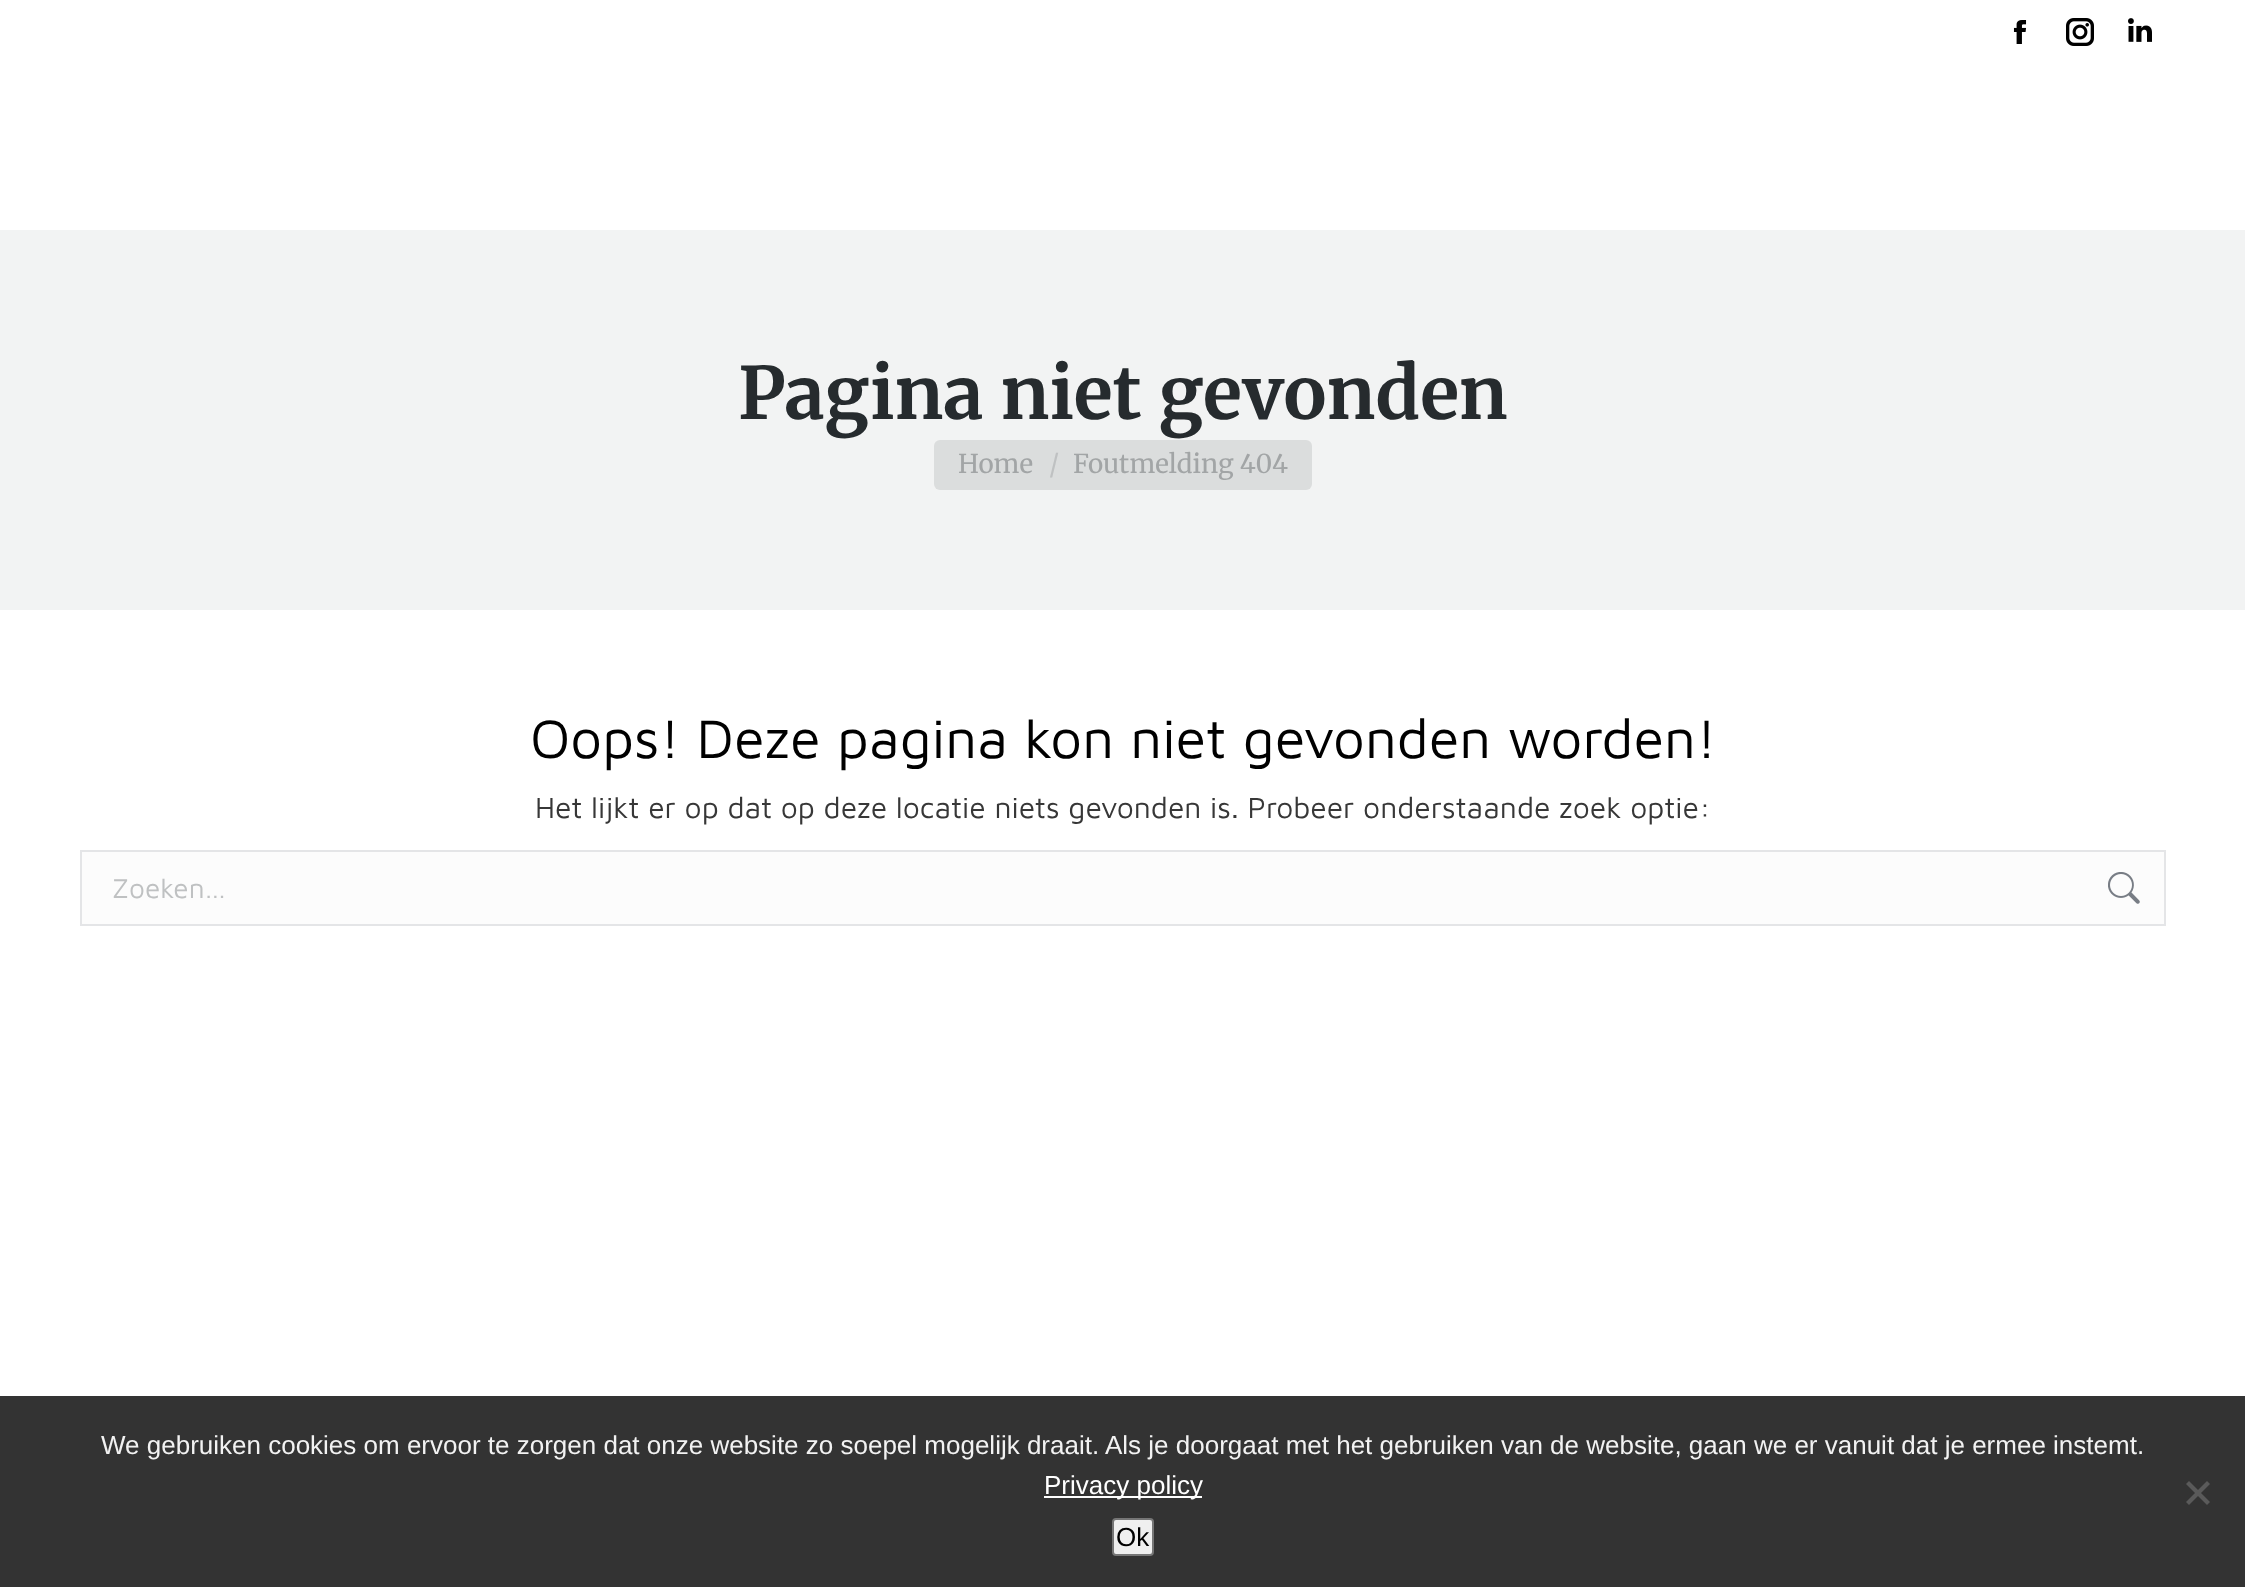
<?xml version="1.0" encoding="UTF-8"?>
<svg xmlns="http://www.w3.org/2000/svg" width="2245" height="1587">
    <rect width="100%" height="100%" fill="#FFFFFF"/>
    <image x="2013" y="20" width="14" height="24" href="img_01.png"/>
    <image x="2066" y="18" width="28" height="28" href="img_02.png"/>
    <image x="2128" y="18" width="24" height="24" href="img_03.png"/>
    <rect x="0" y="230" width="2245" height="380" fill="#F2F3F3"/>
    <text x="738" y="419" font-family="Merriweather" font-size="72" font-weight="700" fill="#262B2E">Pagina niet gevonden</text>
    <rect x="934" y="440" width="378" height="50" rx="6" fill="#DBDDDD"/>
    <text x="958" y="473" font-family="Merriweather" font-size="26" fill="#A2A5A6">Home</text>
    <text x="1049" y="473" font-family="Merriweather" font-size="26" fill="#BFC1C2">/</text>
    <text x="1073" y="473" font-family="Merriweather" font-size="26" fill="#A2A5A6">Foutmelding 404</text>
    <text x="530" y="758" font-family="Maven Pro" font-size="56" fill="#000000">Oops! Deze pagina kon niet gevonden worden!</text>
    <text x="535" y="818" font-family="Maven Pro" font-size="30" fill="#373737">Het lijkt er op dat op deze locatie niets gevonden is. Probeer onderstaande zoek optie:</text>
    <rect x="81" y="851" width="2084" height="74" fill="#FCFCFC" stroke="#E4E5E7" stroke-width="2"/>
    <text x="112" y="898" font-family="Maven Pro" font-size="28" fill="#BFC1C2">Zoeken…</text>
    <image x="2108" y="872" width="32" height="32" href="img_04.png"/>
    <rect x="0" y="1396" width="2245" height="191" fill="#333333"/>
    <text x="101" y="1454" font-family="Liberation Sans" font-size="26" fill="#F2F2F2">We gebruiken cookies om ervoor te zorgen dat onze website zo soepel mogelijk draait. Als je doorgaat met het gebruiken van de website, gaan we er vanuit dat je ermee instemt.</text>
    <rect x="1044" y="1496" width="158" height="2" fill="#FFFFFF"/>
    <text x="1044" y="1494" font-family="Liberation Sans" font-size="26" fill="#FFFFFF">Privacy policy</text>
    <path d="M 2207 1481 L 2210 1484 L 2189 1505 L 2186 1502 Z" fill="#5A5A5A"/>
    <path d="M 2186 1484 L 2189 1481 L 2210 1502 L 2207 1505 Z" fill="#5A5A5A"/>
    <rect x="1113" y="1519" width="40" height="36" rx="3" fill="#EFEFEF" stroke="#767676" stroke-width="2"/>
    <text x="1116" y="1546" font-family="Liberation Sans" font-size="26" fill="#000000">Ok</text>
</svg>
